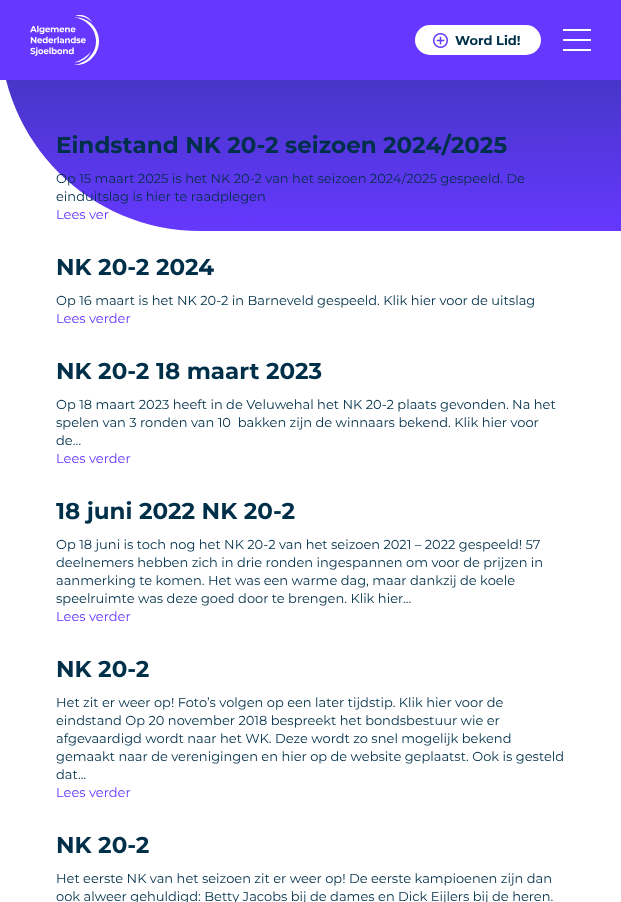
<?xml version="1.0" encoding="UTF-8"?>
<svg xmlns="http://www.w3.org/2000/svg" width="621" height="902">
    <defs>
        <linearGradient id="g1" gradientUnits="userSpaceOnUse" x1="310" y1="-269" x2="311" y2="231"><stop offset="0" stop-color="#003049"/><stop offset="1" stop-color="#6638FF"/></linearGradient>
    </defs>
    <rect width="100%" height="100%" fill="#FFFFFF"/>
    <path d="M 0 -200 H 621 V 231 H 200 C 89.5 231 0 141.5 0 31 Z" fill="url(#g1)"/>
    <rect x="0" y="0" width="621" height="80" fill="#6638FF"/>
    <image x="30" y="15" width="69" height="50" href="img_01.png"/>
    <rect x="415" y="25" width="126" height="30" rx="15" fill="#FFFFFF"/>
    <image x="433" y="33" width="15" height="15" href="img_02.png"/>
    <text x="455" y="45" font-family="Montserrat" font-size="13" font-weight="700" fill="#003049">Word Lid!</text>
    <rect x="563" y="29" width="28" height="2" fill="#FFFFFF"/>
    <rect x="563" y="39" width="28" height="2" fill="#FFFFFF"/>
    <rect x="563" y="49" width="28" height="2" fill="#FFFFFF"/>
    <text x="56" y="153" font-family="Montserrat" font-size="23" font-weight="700" fill="#003049">Eindstand NK 20-2 seizoen 2024/2025</text>
    <text font-family="Montserrat" font-size="13" fill="#003049">
        <tspan x="56" y="183">Op 15 maart 2025 is het NK 20-2 van het seizoen 2024/2025 gespeeld. De</tspan>
        <tspan x="56" y="201">einduitslag is hier te raadplegen</tspan>
    </text>
    <text x="56" y="219" font-family="Montserrat" font-size="13" fill="#6638FF">Lees ver</text>
    <text x="56" y="275" font-family="Montserrat" font-size="23" font-weight="700" fill="#003049">NK 20-2 2024</text>
    <text x="56" y="305" font-family="Montserrat" font-size="13" fill="#003049">Op 16 maart is het NK 20-2 in Barneveld gespeeld. Klik hier voor de uitslag</text>
    <text x="56" y="323" font-family="Montserrat" font-size="13" fill="#6638FF">Lees verder</text>
    <text x="56" y="379" font-family="Montserrat" font-size="23" font-weight="700" fill="#003049">NK 20-2 18 maart 2023</text>
    <text font-family="Montserrat" font-size="13" fill="#003049" xml:space="preserve"><tspan x="56" y="409">Op 18 maart 2023 heeft in de Veluwehal het NK 20-2 plaats gevonden. Na het</tspan><tspan x="56" y="427">spelen van 3 ronden van 10  bakken zijn de winnaars bekend. Klik hier voor</tspan><tspan x="56" y="445">de…</tspan></text>
    <text x="56" y="463" font-family="Montserrat" font-size="13" fill="#6638FF">Lees verder</text>
    <text x="56" y="519" font-family="Montserrat" font-size="23" font-weight="700" fill="#003049">18 juni 2022 NK 20-2</text>
    <text font-family="Montserrat" font-size="13" fill="#003049">
        <tspan x="56" y="549">Op 18 juni is toch nog het NK 20-2 van het seizoen 2021 – 2022 gespeeld! 57</tspan>
        <tspan x="56" y="567">deelnemers hebben zich in drie ronden ingespannen om voor de prijzen in</tspan>
        <tspan x="56" y="585">aanmerking te komen. Het was een warme dag, maar dankzij de koele</tspan>
        <tspan x="56" y="603">speelruimte was deze goed door te brengen. Klik hier...</tspan>
    </text>
    <text x="56" y="621" font-family="Montserrat" font-size="13" fill="#6638FF">Lees verder</text>
    <text x="56" y="677" font-family="Montserrat" font-size="23" font-weight="700" fill="#003049">NK 20-2</text>
    <text font-family="Montserrat" font-size="13" fill="#003049">
        <tspan x="56" y="707">Het zit er weer op! Foto’s volgen op een later tijdstip. Klik hier voor de</tspan>
        <tspan x="56" y="725">eindstand Op 20 november 2018 bespreekt het bondsbestuur wie er</tspan>
        <tspan x="56" y="743">afgevaardigd wordt naar het WK. Deze wordt zo snel mogelijk bekend</tspan>
        <tspan x="56" y="761">gemaakt naar de verenigingen en hier op de website geplaatst. Ook is gesteld</tspan>
        <tspan x="56" y="779">dat...</tspan>
    </text>
    <text x="56" y="797" font-family="Montserrat" font-size="13" fill="#6638FF">Lees verder</text>
    <text x="56" y="853" font-family="Montserrat" font-size="23" font-weight="700" fill="#003049">NK 20-2</text>
    <text font-family="Montserrat" font-size="13" fill="#003049">
        <tspan x="56" y="883">Het eerste NK van het seizoen zit er weer op! De eerste kampioenen zijn dan</tspan>
        <tspan x="56" y="901">ook alweer gehuldigd: Betty Jacobs bij de dames en Dick Eijlers bij de heren.</tspan>
    </text>
</svg>
